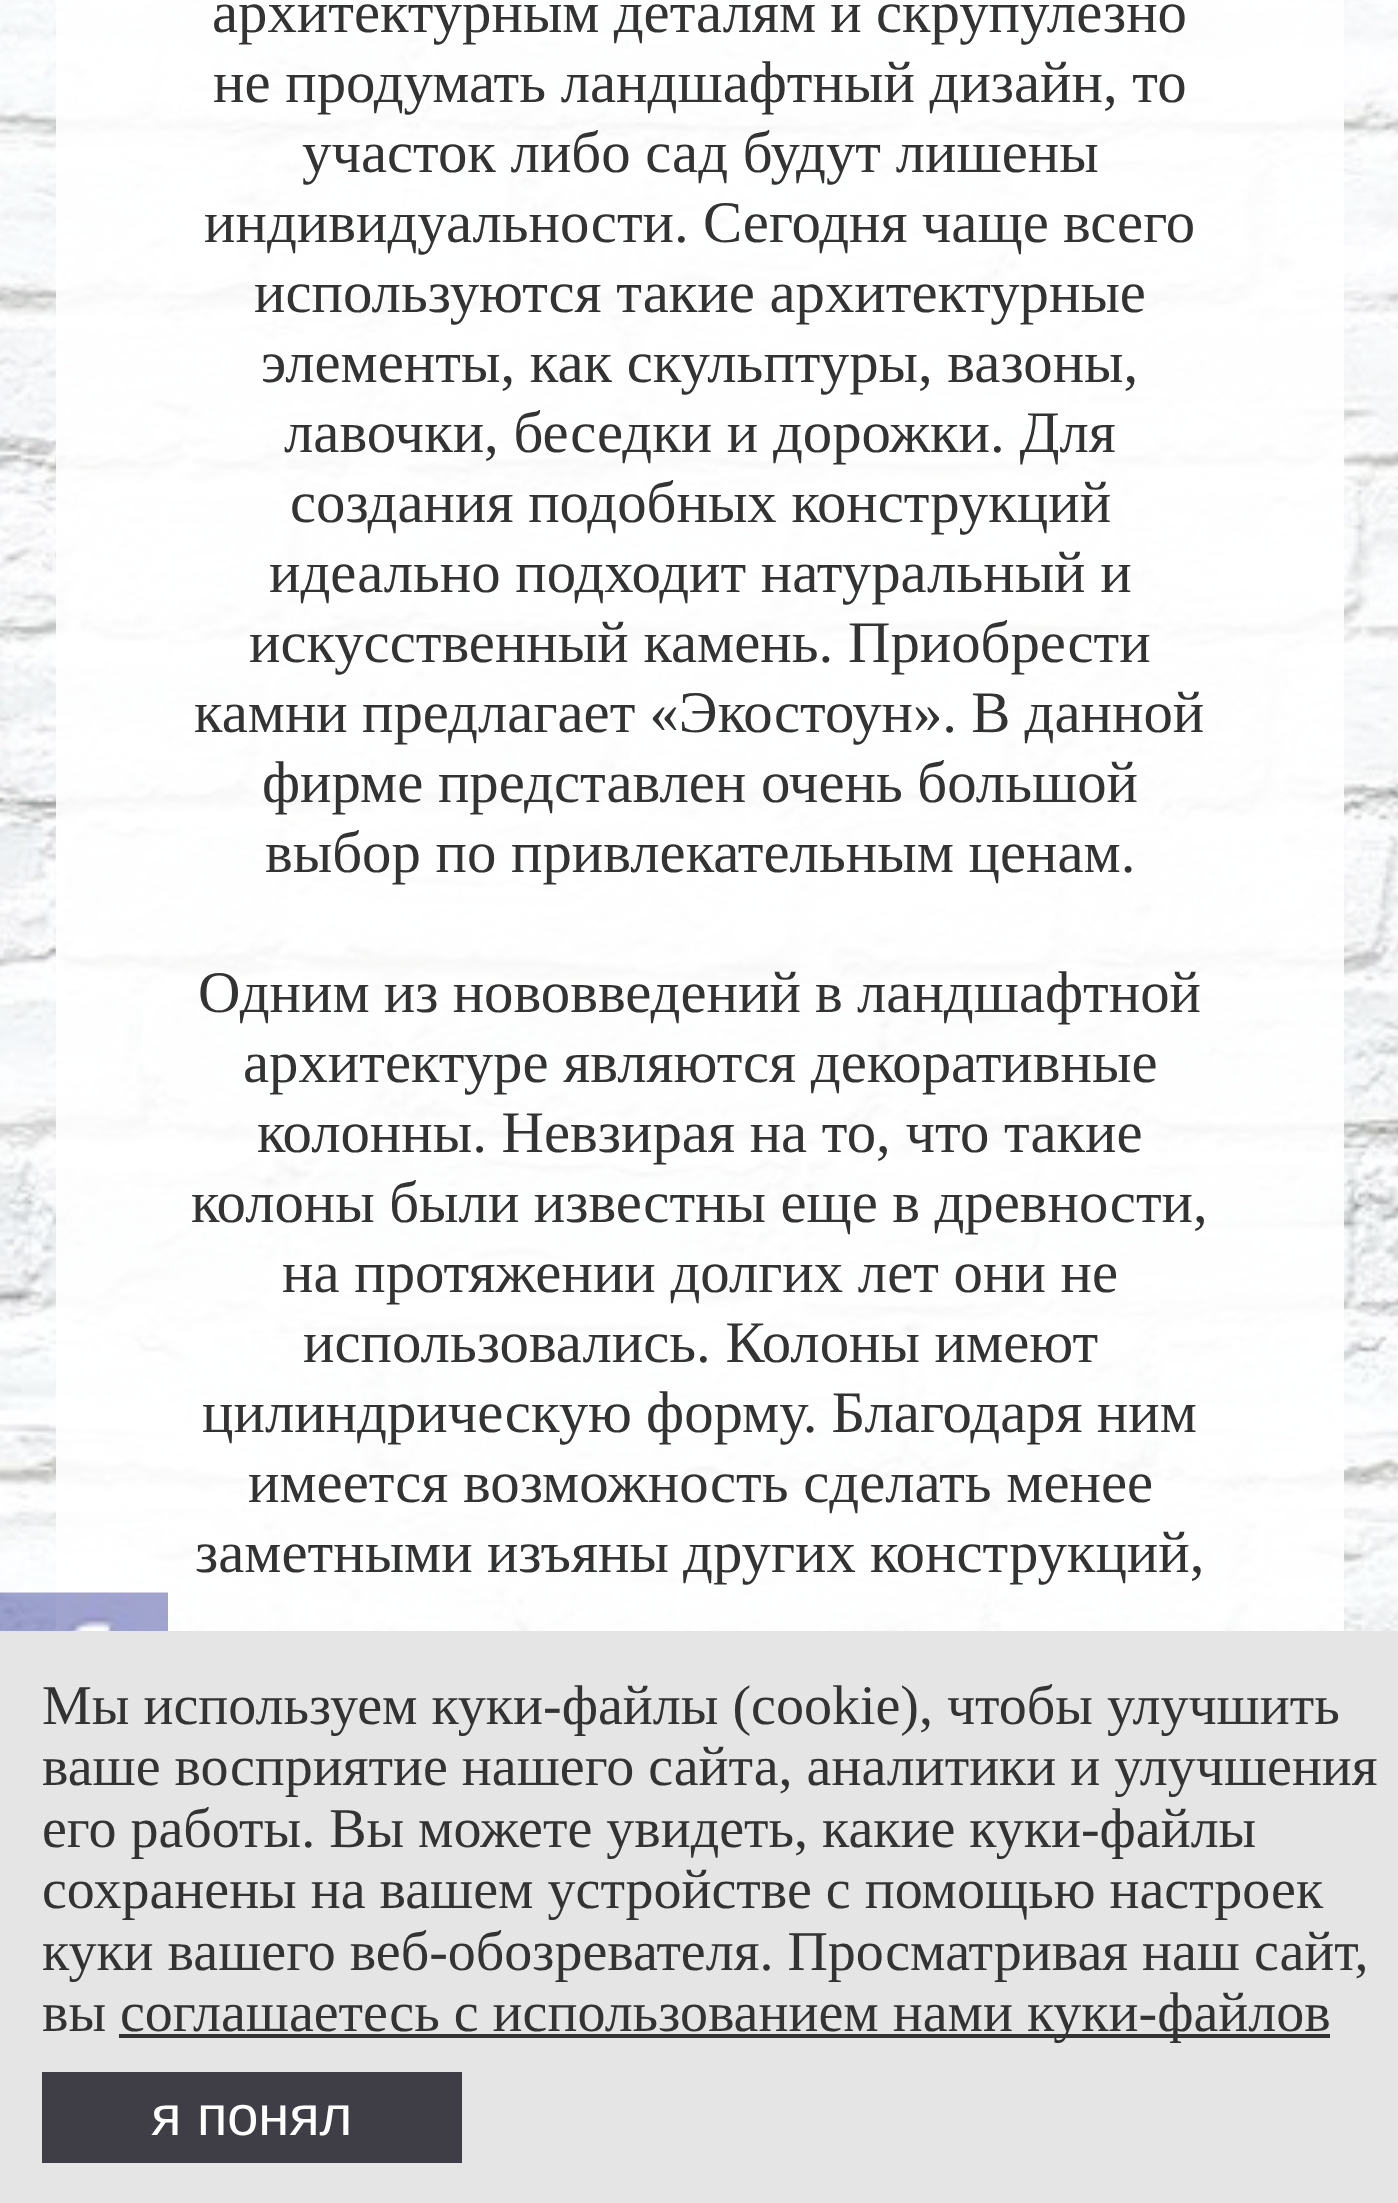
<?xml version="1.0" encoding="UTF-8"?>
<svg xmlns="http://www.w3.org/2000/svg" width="1398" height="2203">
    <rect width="100%" height="100%" fill="#FFFFFF"/>
    <image x="0" y="0" width="1398" height="1631" href="img_01.png"/>
    <text x="212" y="32" word-spacing="-0.5" font-family="Liberation Serif" font-size="58.75" fill="#333333">архитектурным деталям и скрупулезно</text>
    <text x="213" y="102" font-family="Liberation Serif" font-size="58.75" fill="#333333">не продумать ландшафтный дизайн, то</text>
    <text x="302" y="172" font-family="Liberation Serif" font-size="58.75" fill="#333333">участок либо сад будут лишены</text>
    <text x="204" y="242" word-spacing="-0.5" font-family="Liberation Serif" font-size="58.75" fill="#333333">индивидуальности. Сегодня чаще всего</text>
    <text x="254" y="312" font-family="Liberation Serif" font-size="58.75" fill="#333333">используются такие архитектурные</text>
    <text x="261" y="382" font-family="Liberation Serif" font-size="58.75" fill="#333333">элементы, как скульптуры, вазоны,</text>
    <text x="284" y="452" font-family="Liberation Serif" font-size="58.75" fill="#333333">лавочки, беседки и дорожки. Для</text>
    <text x="290" y="522" font-family="Liberation Serif" font-size="58.75" fill="#333333">создания подобных конструкций</text>
    <text x="269" y="592" font-family="Liberation Serif" font-size="58.75" fill="#333333">идеально подходит натуральный и</text>
    <text x="249" y="662" font-family="Liberation Serif" font-size="58.75" fill="#333333">искусственный камень. Приобрести</text>
    <text x="194" y="732" word-spacing="-0.5" font-family="Liberation Serif" font-size="58.75" fill="#333333">камни предлагает «Экостоун». В данной</text>
    <text x="262" y="802" font-family="Liberation Serif" font-size="58.75" fill="#333333">фирме представлен очень большой</text>
    <text x="265" y="872" font-family="Liberation Serif" font-size="58.75" fill="#333333">выбор по привлекательным ценам.</text>
    <text x="198" y="1012" word-spacing="-0.5" font-family="Liberation Serif" font-size="58.75" fill="#333333">Одним из нововведений в ландшафтной</text>
    <text x="243" y="1082" font-family="Liberation Serif" font-size="58.75" fill="#333333">архитектуре являются декоративные</text>
    <text x="257" y="1152" font-family="Liberation Serif" font-size="58.75" fill="#333333">колонны. Невзирая на то, что такие</text>
    <text x="191" y="1222" word-spacing="-0.25" font-family="Liberation Serif" font-size="58.75" fill="#333333">колоны были известны еще в древности,</text>
    <text x="282" y="1292" font-family="Liberation Serif" font-size="58.75" fill="#333333">на протяжении долгих лет они не</text>
    <text x="303" y="1362" font-family="Liberation Serif" font-size="58.75" fill="#333333">использовались. Колоны имеют</text>
    <text x="202" y="1432" word-spacing="-0.5" font-family="Liberation Serif" font-size="58.75" fill="#333333">цилиндрическую форму. Благодаря ним</text>
    <text x="248" y="1502" font-family="Liberation Serif" font-size="58.75" fill="#333333">имеется возможность сделать менее</text>
    <text x="195" y="1572" word-spacing="-0.5" font-family="Liberation Serif" font-size="58.75" fill="#333333">заметными изъяны других конструкций,</text>
    <image x="0" y="1592" width="168" height="39" href="img_02.png"/>
    <rect x="0" y="1631" width="1398" height="572" fill="#E4E5E4"/>
    <text font-family="Liberation Serif" font-size="56" fill="#333333">
        <tspan x="42" y="1724">Мы используем куки-файлы (cookie), чтобы улучшить</tspan>
        <tspan x="42" y="1785">ваше восприятие нашего сайта, аналитики и улучшения</tspan>
        <tspan x="42" y="1847">его работы. Вы можете увидеть, какие куки-файлы</tspan>
        <tspan x="42" y="1908">сохранены на вашем устройстве с помощью настроек</tspan>
        <tspan x="42" y="1970">куки вашего веб-обозревателя. Просматривая наш сайт,</tspan>
        <tspan x="42" y="2031">вы</tspan>
    </text>
    <rect x="119" y="2034" width="1211" height="4" fill="#333333"/>
    <text x="120" y="2031" font-family="Liberation Serif" font-size="56" fill="#333333">соглашаетесь с использованием нами куки-файлов</text>
    <rect x="42" y="2072" width="420" height="91" fill="#3F3D45"/>
    <text x="151" y="2135" font-family="Liberation Sans" font-size="56" fill="#FFFFFF">я понял</text>
</svg>
